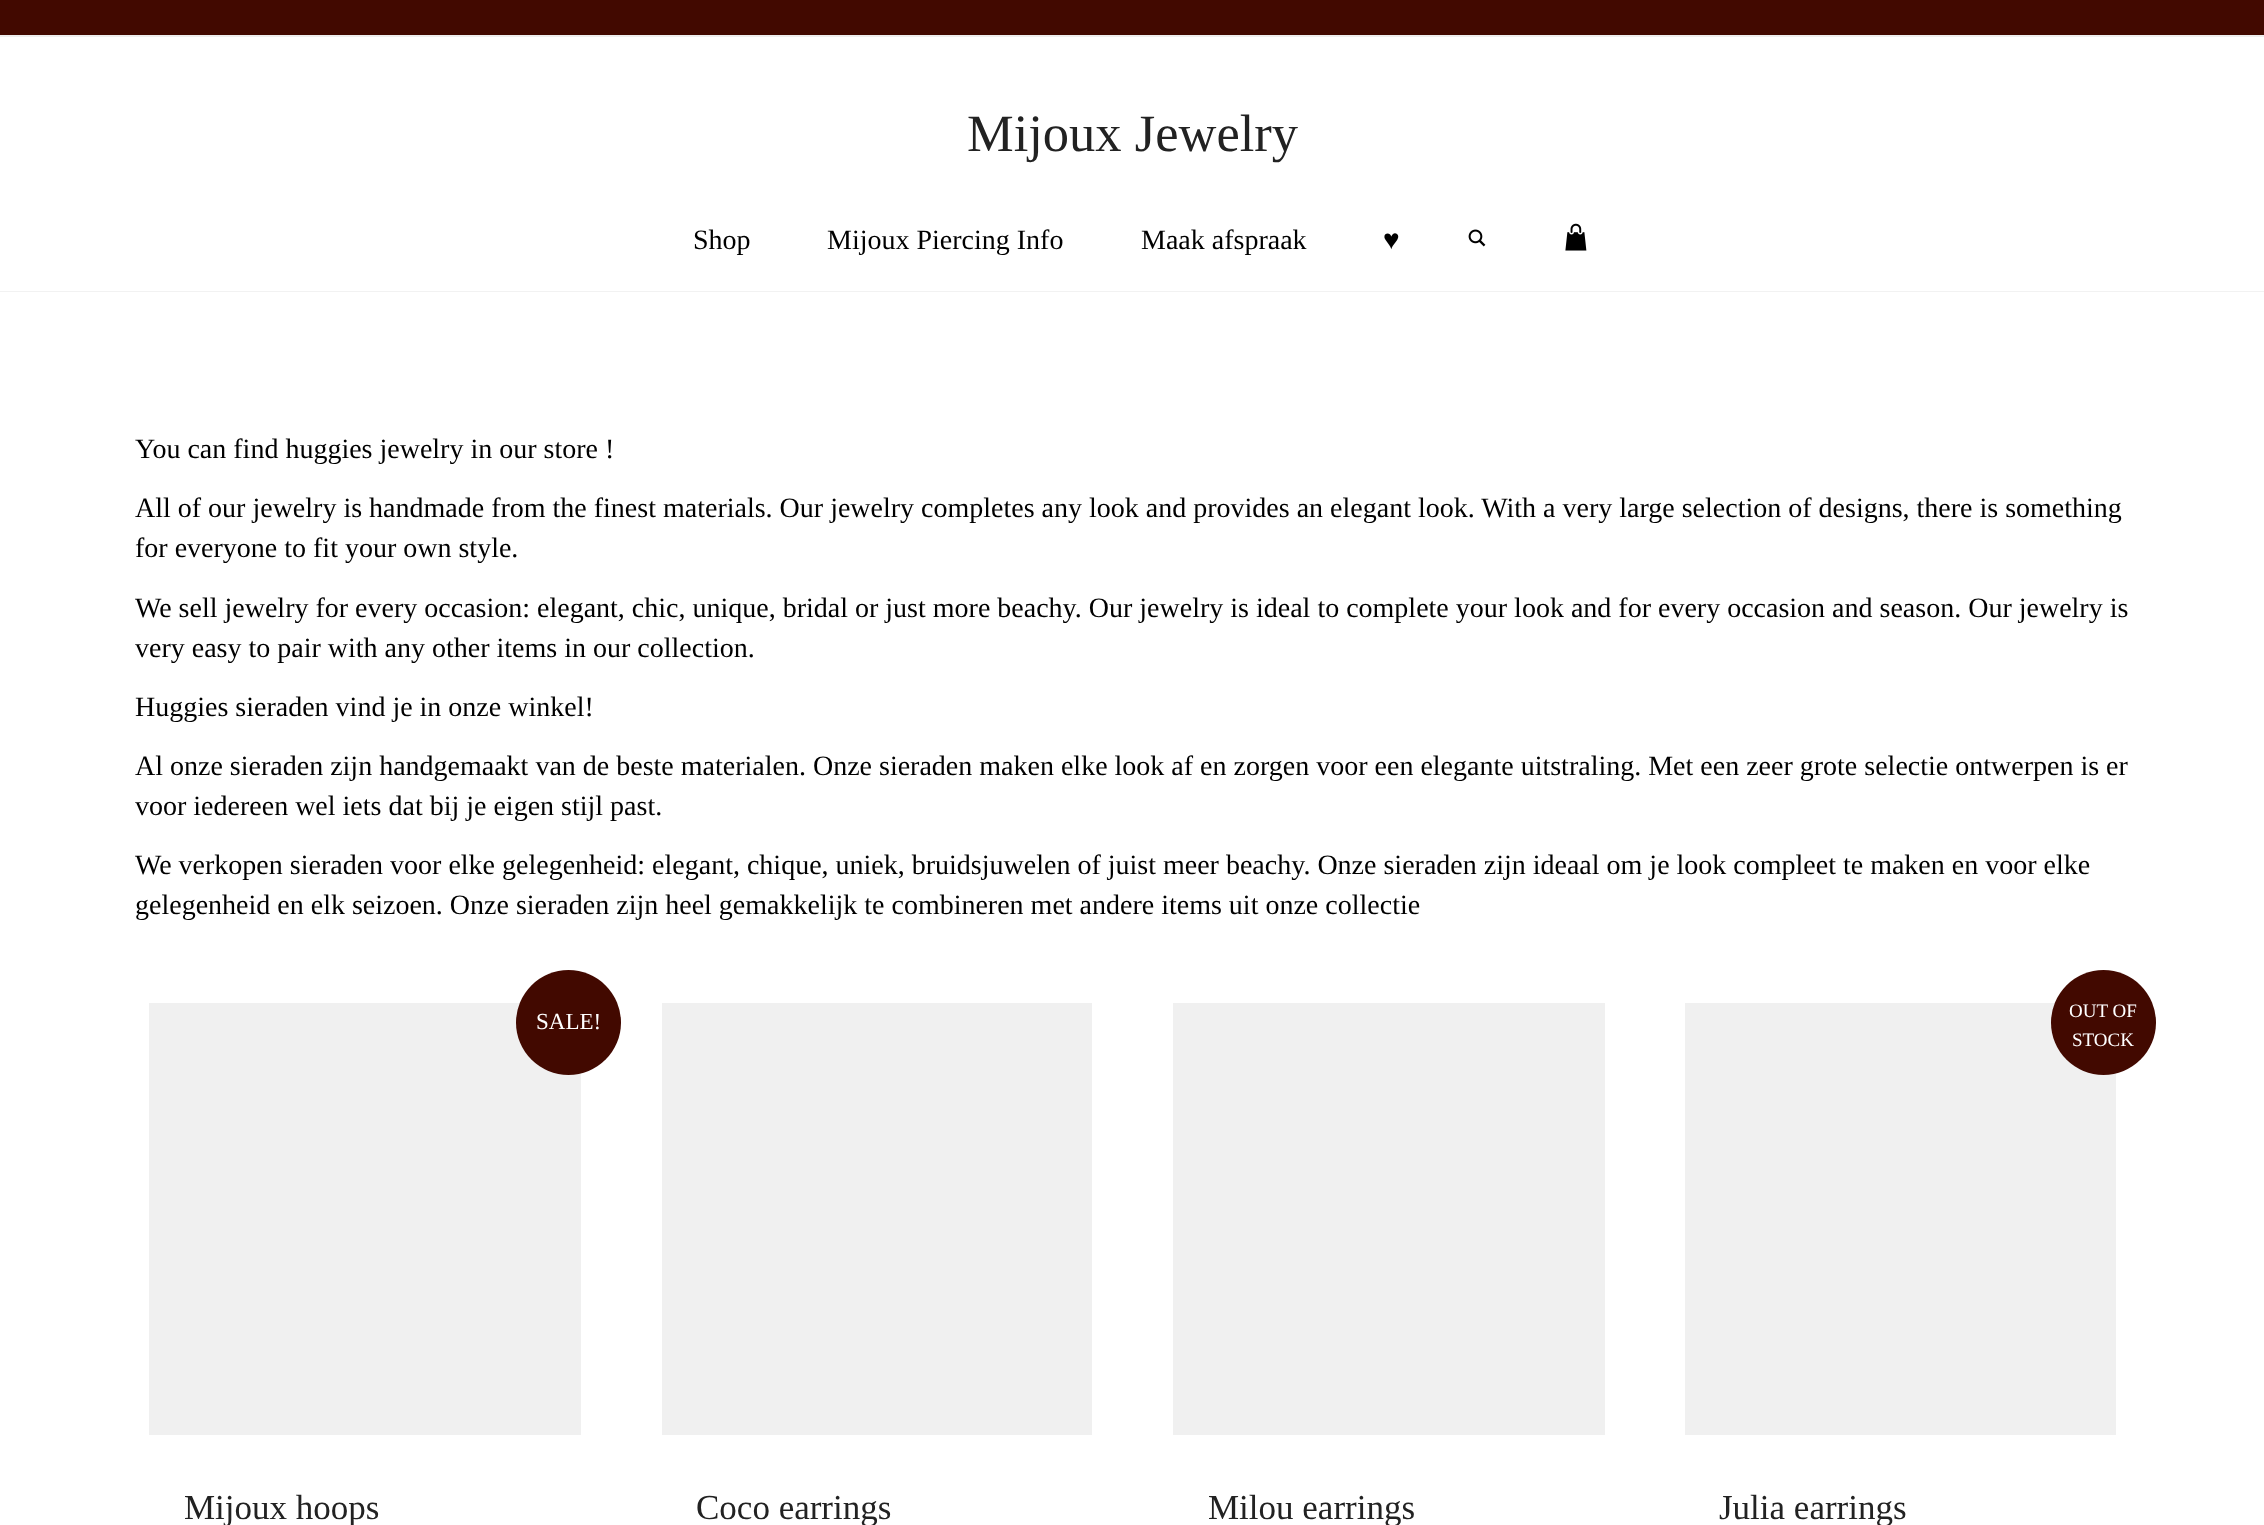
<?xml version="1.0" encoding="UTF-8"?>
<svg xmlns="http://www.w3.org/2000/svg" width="2264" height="1525">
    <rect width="100%" height="100%" fill="#FFFFFF"/>
    <path d="M 0 290 V 292 H 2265 V 2 H 2264 V 290 Z" fill="#F2F2F2"/>
    <rect x="0" y="290" width="2264" height="1" fill="#FFFFFF"/>
    <rect x="0" y="0" width="2264" height="35" fill="#420900"/>
    <rect x="0" y="35" width="2264" height="2" fill="#EEEEEE"/>
    <text x="967" y="151" font-family="Liberation Serif" font-size="52.5" fill="#222222">Mijoux Jewelry</text>
    <text x="693" y="249" font-family="Liberation Serif" font-size="28" fill="#000000">Shop</text>
    <text x="827" y="249" font-family="Liberation Serif" font-size="28" fill="#000000">Mijoux Piercing Info</text>
    <text x="1141" y="249" font-family="Liberation Serif" font-size="28" fill="#000000">Maak afspraak</text>
    <text x="1383" y="249" font-family="Liberation Serif" font-size="28" fill="#000000">♥︎</text>
    <image x="1468" y="229" width="18" height="18" href="img_01.png"/>
    <image x="1565" y="223" width="22" height="28" href="img_02.png"/>
    <text x="135" y="458" font-family="Liberation Serif" font-size="28" fill="#000000">You can find huggies jewelry in our store !</text>
    <text font-family="Liberation Serif" font-size="28" fill="#000000">
        <tspan x="135" y="517">All of our jewelry is handmade from the finest materials. Our jewelry completes any look and provides an elegant look. With a very large selection of designs, there is something</tspan>
        <tspan x="135" y="557">for everyone to fit your own style.</tspan>
    </text>
    <text font-family="Liberation Serif" font-size="28" fill="#000000">
        <tspan x="135" y="617">We sell jewelry for every occasion: elegant, chic, unique, bridal or just more beachy. Our jewelry is ideal to complete your look and for every occasion and season. Our jewelry is</tspan>
        <tspan x="135" y="657">very easy to pair with any other items in our collection.</tspan>
    </text>
    <text x="135" y="716" font-family="Liberation Serif" font-size="28" fill="#000000">Huggies sieraden vind je in onze winkel!</text>
    <text font-family="Liberation Serif" font-size="28" fill="#000000">
        <tspan x="135" y="775">Al onze sieraden zijn handgemaakt van de beste materialen. Onze sieraden maken elke look af en zorgen voor een elegante uitstraling. Met een zeer grote selectie ontwerpen is er</tspan>
        <tspan x="135" y="815">voor iedereen wel iets dat bij je eigen stijl past.</tspan>
    </text>
    <text font-family="Liberation Serif" font-size="28" fill="#000000">
        <tspan x="135" y="874">We verkopen sieraden voor elke gelegenheid: elegant, chique, uniek, bruidsjuwelen of juist meer beachy. Onze sieraden zijn ideaal om je look compleet te maken en voor elke</tspan>
        <tspan x="135" y="914">gelegenheid en elk seizoen. Onze sieraden zijn heel gemakkelijk te combineren met andere items uit onze collectie</tspan>
    </text>
    <rect x="149" y="1003" width="432" height="432" fill="#F0F0F0"/>
    <circle cx="568.5" cy="1022.5" r="52.5" fill="#420900"/>
    <text x="536" y="1029" font-family="Liberation Serif" font-size="23" fill="#FFFFFF">SALE!</text>
    <text x="184" y="1519" font-family="Liberation Serif" font-size="35" fill="#222222">Mijoux hoops</text>
    <rect x="662" y="1003" width="430" height="432" fill="#F0F0F0"/>
    <text x="696" y="1519" font-family="Liberation Serif" font-size="35" fill="#222222">Coco earrings</text>
    <rect x="1173" y="1003" width="432" height="432" fill="#F0F0F0"/>
    <text x="1208" y="1519" font-family="Liberation Serif" font-size="35" fill="#222222">Milou earrings</text>
    <rect x="1685" y="1003" width="431" height="432" fill="#F0F0F0"/>
    <circle cx="2103.5" cy="1022.5" r="52.5" fill="#420900"/>
    <text x="2069" y="1017" font-family="Liberation Serif" font-size="19" fill="#FFFFFF">OUT OF</text>
    <text x="2072" y="1046" font-family="Liberation Serif" font-size="19" fill="#FFFFFF">STOCK</text>
    <text x="1719" y="1519" font-family="Liberation Serif" font-size="35" fill="#222222">Julia earrings</text>
</svg>
